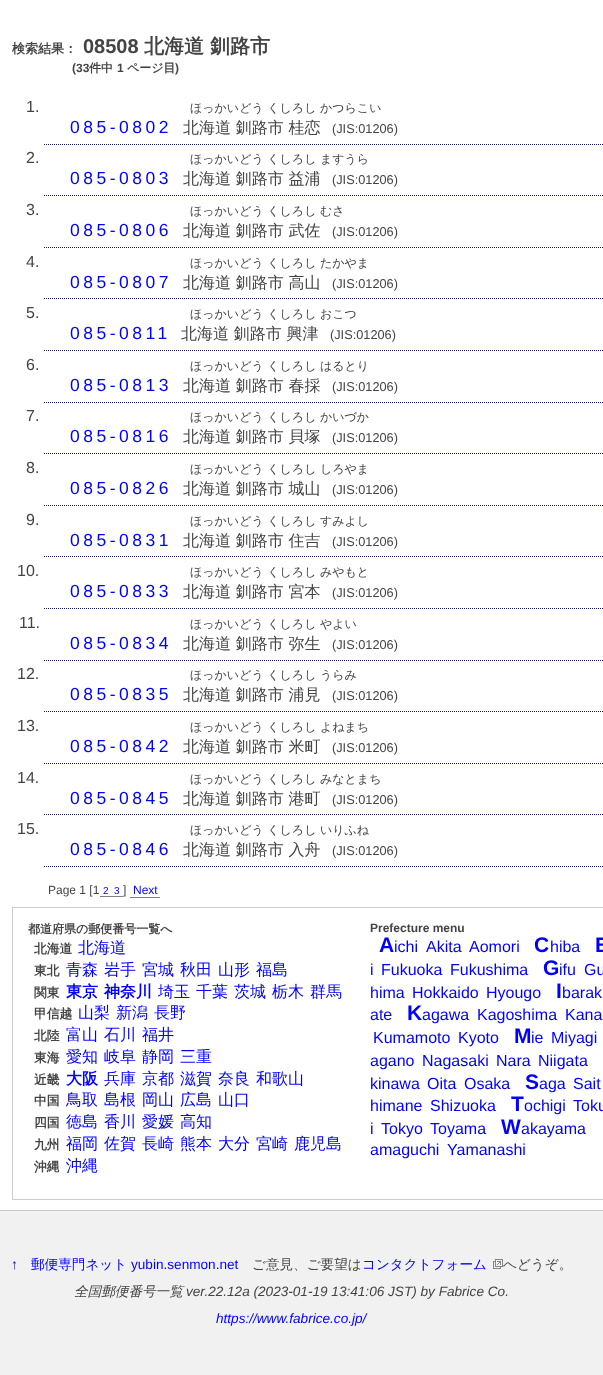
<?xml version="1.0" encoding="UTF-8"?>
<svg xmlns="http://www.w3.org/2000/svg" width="603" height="1375">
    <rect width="100%" height="100%" fill="#FFFFFF"/>
    <text x="12" y="53" font-family="WenQuanYi Zen Hei" font-size="13" font-weight="700" fill="#444444">検索結果：</text>
    <text x="83" y="53" font-family="Liberation Sans" font-size="20" font-weight="700" fill="#444444">08508</text>
    <text x="144" y="53" font-family="WenQuanYi Zen Hei" font-size="20" font-weight="700" fill="#444444">北海道 釧路市</text>
    <text x="72" y="72" font-family="Liberation Sans" font-size="12" font-weight="700" fill="#444444">(33</text>
    <text x="89" y="72" font-family="WenQuanYi Zen Hei" font-size="12" font-weight="700" fill="#444444">件中</text>
    <text x="117" y="72" font-family="Liberation Sans" font-size="12" font-weight="700" fill="#444444">1</text>
    <text x="127" y="72" font-family="WenQuanYi Zen Hei" font-size="12" font-weight="700" fill="#444444">ページ目</text>
    <text x="175" y="72" font-family="Liberation Sans" font-size="12" font-weight="700" fill="#444444">)</text>
    <path d="M 44 144.5 H 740" fill="none" stroke="#191970" stroke-dasharray="1 1"/>
    <text x="26" y="112" font-family="Liberation Sans" font-size="16" fill="#444444">1.</text>
    <text x="190" y="112" font-family="WenQuanYi Zen Hei" font-size="12" font-weight="500" fill="#444444">ほっかいどう くしろし かつらこい</text>
    <text x="70" y="133" font-family="Liberation Sans" font-size="17.5" letter-spacing="3.5" fill="#0000FF">085-0802</text>
    <text x="183" y="133" font-family="WenQuanYi Zen Hei" font-size="16" font-weight="500" fill="#444444">北海道 釧路市 桂恋</text>
    <text x="332" y="133" font-family="Liberation Sans" font-size="12.75" fill="#444444">(JIS:01206)</text>
    <path d="M 44 195.5 H 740" fill="none" stroke="#191970" stroke-dasharray="1 1"/>
    <text x="26" y="163" font-family="Liberation Sans" font-size="16" fill="#444444">2.</text>
    <text x="190" y="163" font-family="WenQuanYi Zen Hei" font-size="12" font-weight="500" fill="#444444">ほっかいどう くしろし ますうら</text>
    <text x="70" y="184" font-family="Liberation Sans" font-size="17.5" letter-spacing="3.5" fill="#0000FF">085-0803</text>
    <text x="183" y="184" font-family="WenQuanYi Zen Hei" font-size="16" font-weight="500" fill="#444444">北海道 釧路市 益浦</text>
    <text x="332" y="184" font-family="Liberation Sans" font-size="12.75" fill="#444444">(JIS:01206)</text>
    <path d="M 44 247.5 H 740" fill="none" stroke="#191970" stroke-dasharray="1 1"/>
    <text x="26" y="215" font-family="Liberation Sans" font-size="16" fill="#444444">3.</text>
    <text x="190" y="215" font-family="WenQuanYi Zen Hei" font-size="12" font-weight="500" fill="#444444">ほっかいどう くしろし むさ</text>
    <text x="70" y="236" font-family="Liberation Sans" font-size="17.5" letter-spacing="3.5" fill="#0000FF">085-0806</text>
    <text x="183" y="236" font-family="WenQuanYi Zen Hei" font-size="16" font-weight="500" fill="#444444">北海道 釧路市 武佐</text>
    <text x="332" y="236" font-family="Liberation Sans" font-size="12.75" fill="#444444">(JIS:01206)</text>
    <path d="M 44 298.5 H 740" fill="none" stroke="#191970" stroke-dasharray="1 1"/>
    <text x="26" y="267" font-family="Liberation Sans" font-size="16" fill="#444444">4.</text>
    <text x="190" y="267" font-family="WenQuanYi Zen Hei" font-size="12" font-weight="500" fill="#444444">ほっかいどう くしろし たかやま</text>
    <text x="70" y="288" font-family="Liberation Sans" font-size="17.5" letter-spacing="3.5" fill="#0000FF">085-0807</text>
    <text x="183" y="288" font-family="WenQuanYi Zen Hei" font-size="16" font-weight="500" fill="#444444">北海道 釧路市 高山</text>
    <text x="332" y="288" font-family="Liberation Sans" font-size="12.75" fill="#444444">(JIS:01206)</text>
    <path d="M 44 350.5 H 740" fill="none" stroke="#191970" stroke-dasharray="1 1"/>
    <text x="26" y="318" font-family="Liberation Sans" font-size="16" fill="#444444">5.</text>
    <text x="190" y="318" font-family="WenQuanYi Zen Hei" font-size="12" font-weight="500" fill="#444444">ほっかいどう くしろし おこつ</text>
    <text x="70" y="339" font-family="Liberation Sans" font-size="17.5" letter-spacing="3.5" fill="#0000FF">085-0811</text>
    <text x="181" y="339" font-family="WenQuanYi Zen Hei" font-size="16" font-weight="500" fill="#444444">北海道 釧路市 興津</text>
    <text x="330" y="339" font-family="Liberation Sans" font-size="12.75" fill="#444444">(JIS:01206)</text>
    <path d="M 44 402.5 H 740" fill="none" stroke="#191970" stroke-dasharray="1 1"/>
    <text x="26" y="370" font-family="Liberation Sans" font-size="16" fill="#444444">6.</text>
    <text x="190" y="370" font-family="WenQuanYi Zen Hei" font-size="12" font-weight="500" fill="#444444">ほっかいどう くしろし はるとり</text>
    <text x="70" y="391" font-family="Liberation Sans" font-size="17.5" letter-spacing="3.5" fill="#0000FF">085-0813</text>
    <text x="183" y="391" font-family="WenQuanYi Zen Hei" font-size="16" font-weight="500" fill="#444444">北海道 釧路市 春採</text>
    <text x="332" y="391" font-family="Liberation Sans" font-size="12.75" fill="#444444">(JIS:01206)</text>
    <path d="M 44 453.5 H 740" fill="none" stroke="#191970" stroke-dasharray="1 1"/>
    <text x="26" y="421" font-family="Liberation Sans" font-size="16" fill="#444444">7.</text>
    <text x="190" y="421" font-family="WenQuanYi Zen Hei" font-size="12" font-weight="500" fill="#444444">ほっかいどう くしろし かいづか</text>
    <text x="70" y="442" font-family="Liberation Sans" font-size="17.5" letter-spacing="3.5" fill="#0000FF">085-0816</text>
    <text x="183" y="442" font-family="WenQuanYi Zen Hei" font-size="16" font-weight="500" fill="#444444">北海道 釧路市 貝塚</text>
    <text x="332" y="442" font-family="Liberation Sans" font-size="12.75" fill="#444444">(JIS:01206)</text>
    <path d="M 44 505.5 H 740" fill="none" stroke="#191970" stroke-dasharray="1 1"/>
    <text x="26" y="473" font-family="Liberation Sans" font-size="16" fill="#444444">8.</text>
    <text x="190" y="473" font-family="WenQuanYi Zen Hei" font-size="12" font-weight="500" fill="#444444">ほっかいどう くしろし しろやま</text>
    <text x="70" y="494" font-family="Liberation Sans" font-size="17.5" letter-spacing="3.5" fill="#0000FF">085-0826</text>
    <text x="183" y="494" font-family="WenQuanYi Zen Hei" font-size="16" font-weight="500" fill="#444444">北海道 釧路市 城山</text>
    <text x="332" y="494" font-family="Liberation Sans" font-size="12.75" fill="#444444">(JIS:01206)</text>
    <path d="M 44 556.5 H 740" fill="none" stroke="#191970" stroke-dasharray="1 1"/>
    <text x="26" y="525" font-family="Liberation Sans" font-size="16" fill="#444444">9.</text>
    <text x="190" y="525" font-family="WenQuanYi Zen Hei" font-size="12" font-weight="500" fill="#444444">ほっかいどう くしろし すみよし</text>
    <text x="70" y="546" font-family="Liberation Sans" font-size="17.5" letter-spacing="3.5" fill="#0000FF">085-0831</text>
    <text x="183" y="546" font-family="WenQuanYi Zen Hei" font-size="16" font-weight="500" fill="#444444">北海道 釧路市 住吉</text>
    <text x="332" y="546" font-family="Liberation Sans" font-size="12.75" fill="#444444">(JIS:01206)</text>
    <path d="M 44 608.5 H 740" fill="none" stroke="#191970" stroke-dasharray="1 1"/>
    <text x="17" y="576" font-family="Liberation Sans" font-size="16" fill="#444444">10.</text>
    <text x="190" y="576" font-family="WenQuanYi Zen Hei" font-size="12" font-weight="500" fill="#444444">ほっかいどう くしろし みやもと</text>
    <text x="70" y="597" font-family="Liberation Sans" font-size="17.5" letter-spacing="3.5" fill="#0000FF">085-0833</text>
    <text x="183" y="597" font-family="WenQuanYi Zen Hei" font-size="16" font-weight="500" fill="#444444">北海道 釧路市 宮本</text>
    <text x="332" y="597" font-family="Liberation Sans" font-size="12.75" fill="#444444">(JIS:01206)</text>
    <path d="M 44 660.5 H 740" fill="none" stroke="#191970" stroke-dasharray="1 1"/>
    <text x="19" y="628" font-family="Liberation Sans" font-size="16" fill="#444444">11.</text>
    <text x="190" y="628" font-family="WenQuanYi Zen Hei" font-size="12" font-weight="500" fill="#444444">ほっかいどう くしろし やよい</text>
    <text x="70" y="649" font-family="Liberation Sans" font-size="17.5" letter-spacing="3.5" fill="#0000FF">085-0834</text>
    <text x="183" y="649" font-family="WenQuanYi Zen Hei" font-size="16" font-weight="500" fill="#444444">北海道 釧路市 弥生</text>
    <text x="332" y="649" font-family="Liberation Sans" font-size="12.75" fill="#444444">(JIS:01206)</text>
    <path d="M 44 711.5 H 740" fill="none" stroke="#191970" stroke-dasharray="1 1"/>
    <text x="17" y="679" font-family="Liberation Sans" font-size="16" fill="#444444">12.</text>
    <text x="190" y="679" font-family="WenQuanYi Zen Hei" font-size="12" font-weight="500" fill="#444444">ほっかいどう くしろし うらみ</text>
    <text x="70" y="700" font-family="Liberation Sans" font-size="17.5" letter-spacing="3.5" fill="#0000FF">085-0835</text>
    <text x="183" y="700" font-family="WenQuanYi Zen Hei" font-size="16" font-weight="500" fill="#444444">北海道 釧路市 浦見</text>
    <text x="332" y="700" font-family="Liberation Sans" font-size="12.75" fill="#444444">(JIS:01206)</text>
    <path d="M 44 763.5 H 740" fill="none" stroke="#191970" stroke-dasharray="1 1"/>
    <text x="17" y="731" font-family="Liberation Sans" font-size="16" fill="#444444">13.</text>
    <text x="190" y="731" font-family="WenQuanYi Zen Hei" font-size="12" font-weight="500" fill="#444444">ほっかいどう くしろし よねまち</text>
    <text x="70" y="752" font-family="Liberation Sans" font-size="17.5" letter-spacing="3.5" fill="#0000FF">085-0842</text>
    <text x="183" y="752" font-family="WenQuanYi Zen Hei" font-size="16" font-weight="500" fill="#444444">北海道 釧路市 米町</text>
    <text x="332" y="752" font-family="Liberation Sans" font-size="12.75" fill="#444444">(JIS:01206)</text>
    <path d="M 44 814.5 H 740" fill="none" stroke="#191970" stroke-dasharray="1 1"/>
    <text x="17" y="783" font-family="Liberation Sans" font-size="16" fill="#444444">14.</text>
    <text x="190" y="783" font-family="WenQuanYi Zen Hei" font-size="12" font-weight="500" fill="#444444">ほっかいどう くしろし みなとまち</text>
    <text x="70" y="804" font-family="Liberation Sans" font-size="17.5" letter-spacing="3.5" fill="#0000FF">085-0845</text>
    <text x="183" y="804" font-family="WenQuanYi Zen Hei" font-size="16" font-weight="500" fill="#444444">北海道 釧路市 港町</text>
    <text x="332" y="804" font-family="Liberation Sans" font-size="12.75" fill="#444444">(JIS:01206)</text>
    <path d="M 44 866.5 H 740" fill="none" stroke="#191970" stroke-dasharray="1 1"/>
    <text x="17" y="834" font-family="Liberation Sans" font-size="16" fill="#444444">15.</text>
    <text x="190" y="834" font-family="WenQuanYi Zen Hei" font-size="12" font-weight="500" fill="#444444">ほっかいどう くしろし いりふね</text>
    <text x="70" y="855" font-family="Liberation Sans" font-size="17.5" letter-spacing="3.5" fill="#0000FF">085-0846</text>
    <text x="183" y="855" font-family="WenQuanYi Zen Hei" font-size="16" font-weight="500" fill="#444444">北海道 釧路市 入舟</text>
    <text x="332" y="855" font-family="Liberation Sans" font-size="12.75" fill="#444444">(JIS:01206)</text>
    <text x="48" y="894" font-family="Liberation Sans" font-size="12" fill="#444444">Page 1 [1</text>
    <text x="103" y="894" font-family="Liberation Sans" font-size="10" fill="#0000FF">2</text>
    <rect x="100" y="896" width="23" height="1" fill="#808080"/>
    <text x="114" y="894" font-family="Liberation Sans" font-size="10" fill="#0000FF">3</text>
    <text x="123" y="894" font-family="Liberation Sans" font-size="12" fill="#444444">]</text>
    <text x="133" y="894" font-family="Liberation Sans" font-size="12" fill="#0000FF">Next</text>
    <rect x="130" y="897" width="30" height="1" fill="#808080"/>
    <rect x="12.5" y="907.5" width="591" height="292" fill="none" stroke="#CCCCCC"/>
    <text x="28" y="933" font-family="WenQuanYi Zen Hei" font-size="12" font-weight="700" fill="#444444">都道府県の郵便番号一覧へ</text>
    <text x="34" y="953" font-family="WenQuanYi Zen Hei" font-size="12.75" font-weight="700" fill="#444444">北海道</text>
    <text x="78" y="953" font-family="WenQuanYi Zen Hei" font-size="16" font-weight="500" fill="#0000FF">北海道</text>
    <text x="34" y="975" font-family="WenQuanYi Zen Hei" font-size="12.75" font-weight="700" fill="#444444">東北</text>
    <text x="66" y="975" font-family="WenQuanYi Zen Hei" font-size="16" font-weight="500" fill="#0000FF">青森</text>
    <text x="104" y="975" font-family="WenQuanYi Zen Hei" font-size="16" font-weight="500" fill="#0000FF">岩手</text>
    <text x="142" y="975" font-family="WenQuanYi Zen Hei" font-size="16" font-weight="500" fill="#0000FF">宮城</text>
    <text x="180" y="975" font-family="WenQuanYi Zen Hei" font-size="16" font-weight="500" fill="#0000FF">秋田</text>
    <text x="218" y="975" font-family="WenQuanYi Zen Hei" font-size="16" font-weight="500" fill="#0000FF">山形</text>
    <text x="256" y="975" font-family="WenQuanYi Zen Hei" font-size="16" font-weight="500" fill="#0000FF">福島</text>
    <text x="34" y="997" font-family="WenQuanYi Zen Hei" font-size="12.75" font-weight="700" fill="#444444">関東</text>
    <text x="66" y="997" font-family="WenQuanYi Zen Hei" font-size="16" font-weight="700" fill="#0000FF">東京</text>
    <text x="104" y="997" font-family="WenQuanYi Zen Hei" font-size="16" font-weight="700" fill="#0000FF">神奈川</text>
    <text x="158" y="997" font-family="WenQuanYi Zen Hei" font-size="16" font-weight="500" fill="#0000FF">埼玉</text>
    <text x="196" y="997" font-family="WenQuanYi Zen Hei" font-size="16" font-weight="500" fill="#0000FF">千葉</text>
    <text x="234" y="997" font-family="WenQuanYi Zen Hei" font-size="16" font-weight="500" fill="#0000FF">茨城</text>
    <text x="272" y="997" font-family="WenQuanYi Zen Hei" font-size="16" font-weight="500" fill="#0000FF">栃木</text>
    <text x="310" y="997" font-family="WenQuanYi Zen Hei" font-size="16" font-weight="500" fill="#0000FF">群馬</text>
    <text x="34" y="1018" font-family="WenQuanYi Zen Hei" font-size="12.75" font-weight="700" fill="#444444">甲信越</text>
    <text x="78" y="1018" font-family="WenQuanYi Zen Hei" font-size="16" font-weight="500" fill="#0000FF">山梨</text>
    <text x="116" y="1018" font-family="WenQuanYi Zen Hei" font-size="16" font-weight="500" fill="#0000FF">新潟</text>
    <text x="154" y="1018" font-family="WenQuanYi Zen Hei" font-size="16" font-weight="500" fill="#0000FF">長野</text>
    <text x="34" y="1040" font-family="WenQuanYi Zen Hei" font-size="12.75" font-weight="700" fill="#444444">北陸</text>
    <text x="66" y="1040" font-family="WenQuanYi Zen Hei" font-size="16" font-weight="500" fill="#0000FF">富山</text>
    <text x="104" y="1040" font-family="WenQuanYi Zen Hei" font-size="16" font-weight="500" fill="#0000FF">石川</text>
    <text x="142" y="1040" font-family="WenQuanYi Zen Hei" font-size="16" font-weight="500" fill="#0000FF">福井</text>
    <text x="34" y="1062" font-family="WenQuanYi Zen Hei" font-size="12.75" font-weight="700" fill="#444444">東海</text>
    <text x="66" y="1062" font-family="WenQuanYi Zen Hei" font-size="16" font-weight="500" fill="#0000FF">愛知</text>
    <text x="104" y="1062" font-family="WenQuanYi Zen Hei" font-size="16" font-weight="500" fill="#0000FF">岐阜</text>
    <text x="142" y="1062" font-family="WenQuanYi Zen Hei" font-size="16" font-weight="500" fill="#0000FF">静岡</text>
    <text x="180" y="1062" font-family="WenQuanYi Zen Hei" font-size="16" font-weight="500" fill="#0000FF">三重</text>
    <text x="34" y="1084" font-family="WenQuanYi Zen Hei" font-size="12.75" font-weight="700" fill="#444444">近畿</text>
    <text x="66" y="1084" font-family="WenQuanYi Zen Hei" font-size="16" font-weight="700" fill="#0000FF">大阪</text>
    <text x="104" y="1084" font-family="WenQuanYi Zen Hei" font-size="16" font-weight="500" fill="#0000FF">兵庫</text>
    <text x="142" y="1084" font-family="WenQuanYi Zen Hei" font-size="16" font-weight="500" fill="#0000FF">京都</text>
    <text x="180" y="1084" font-family="WenQuanYi Zen Hei" font-size="16" font-weight="500" fill="#0000FF">滋賀</text>
    <text x="218" y="1084" font-family="WenQuanYi Zen Hei" font-size="16" font-weight="500" fill="#0000FF">奈良</text>
    <text x="256" y="1084" font-family="WenQuanYi Zen Hei" font-size="16" font-weight="500" fill="#0000FF">和歌山</text>
    <text x="34" y="1105" font-family="WenQuanYi Zen Hei" font-size="12.75" font-weight="700" fill="#444444">中国</text>
    <text x="66" y="1105" font-family="WenQuanYi Zen Hei" font-size="16" font-weight="500" fill="#0000FF">鳥取</text>
    <text x="104" y="1105" font-family="WenQuanYi Zen Hei" font-size="16" font-weight="500" fill="#0000FF">島根</text>
    <text x="142" y="1105" font-family="WenQuanYi Zen Hei" font-size="16" font-weight="500" fill="#0000FF">岡山</text>
    <text x="180" y="1105" font-family="WenQuanYi Zen Hei" font-size="16" font-weight="500" fill="#0000FF">広島</text>
    <text x="218" y="1105" font-family="WenQuanYi Zen Hei" font-size="16" font-weight="500" fill="#0000FF">山口</text>
    <text x="34" y="1127" font-family="WenQuanYi Zen Hei" font-size="12.75" font-weight="700" fill="#444444">四国</text>
    <text x="66" y="1127" font-family="WenQuanYi Zen Hei" font-size="16" font-weight="500" fill="#0000FF">徳島</text>
    <text x="104" y="1127" font-family="WenQuanYi Zen Hei" font-size="16" font-weight="500" fill="#0000FF">香川</text>
    <text x="142" y="1127" font-family="WenQuanYi Zen Hei" font-size="16" font-weight="500" fill="#0000FF">愛媛</text>
    <text x="180" y="1127" font-family="WenQuanYi Zen Hei" font-size="16" font-weight="500" fill="#0000FF">高知</text>
    <text x="34" y="1149" font-family="WenQuanYi Zen Hei" font-size="12.75" font-weight="700" fill="#444444">九州</text>
    <text x="66" y="1149" font-family="WenQuanYi Zen Hei" font-size="16" font-weight="500" fill="#0000FF">福岡</text>
    <text x="104" y="1149" font-family="WenQuanYi Zen Hei" font-size="16" font-weight="500" fill="#0000FF">佐賀</text>
    <text x="142" y="1149" font-family="WenQuanYi Zen Hei" font-size="16" font-weight="500" fill="#0000FF">長崎</text>
    <text x="180" y="1149" font-family="WenQuanYi Zen Hei" font-size="16" font-weight="500" fill="#0000FF">熊本</text>
    <text x="218" y="1149" font-family="WenQuanYi Zen Hei" font-size="16" font-weight="500" fill="#0000FF">大分</text>
    <text x="256" y="1149" font-family="WenQuanYi Zen Hei" font-size="16" font-weight="500" fill="#0000FF">宮崎</text>
    <text x="294" y="1149" font-family="WenQuanYi Zen Hei" font-size="16" font-weight="500" fill="#0000FF">鹿児島</text>
    <text x="34" y="1171" font-family="WenQuanYi Zen Hei" font-size="12.75" font-weight="700" fill="#444444">沖縄</text>
    <text x="66" y="1171" font-family="WenQuanYi Zen Hei" font-size="16" font-weight="500" fill="#0000FF">沖縄</text>
    <text x="370" y="932" font-family="Liberation Sans" font-size="12" font-weight="700" fill="#444444">Prefecture menu</text>
    <text x="379" y="952" font-family="Liberation Sans" font-size="21" font-weight="700" fill="#0000FF">A</text>
    <text x="394" y="952" font-family="Liberation Sans" font-size="16" fill="#0000FF">ichi</text>
    <text x="426" y="952" font-family="Liberation Sans" font-size="16" fill="#0000FF">Akita</text>
    <text x="469" y="952" font-family="Liberation Sans" font-size="16" fill="#0000FF">Aomori</text>
    <text x="534" y="952" font-family="Liberation Sans" font-size="21" font-weight="700" fill="#0000FF">C</text>
    <text x="550" y="952" font-family="Liberation Sans" font-size="16" fill="#0000FF">hiba</text>
    <text x="595" y="952" font-family="Liberation Sans" font-size="21" font-weight="700" fill="#0000FF">E</text>
    <text x="370" y="975" font-family="Liberation Sans" font-size="16" fill="#0000FF">i</text>
    <text x="381" y="975" font-family="Liberation Sans" font-size="16" fill="#0000FF">Fukuoka</text>
    <text x="450" y="975" font-family="Liberation Sans" font-size="16" fill="#0000FF">Fukushima</text>
    <text x="543" y="975" font-family="Liberation Sans" font-size="21" font-weight="700" fill="#0000FF">G</text>
    <text x="559" y="975" font-family="Liberation Sans" font-size="16" fill="#0000FF">ifu</text>
    <text x="584" y="975" font-family="Liberation Sans" font-size="16" fill="#0000FF">Gu</text>
    <text x="370" y="998" font-family="Liberation Sans" font-size="16" fill="#0000FF">hima</text>
    <text x="412" y="998" font-family="Liberation Sans" font-size="16" fill="#0000FF">Hokkaido</text>
    <text x="486" y="998" font-family="Liberation Sans" font-size="16" fill="#0000FF">Hyougo</text>
    <text x="556" y="998" font-family="Liberation Sans" font-size="21" font-weight="700" fill="#0000FF">I</text>
    <text x="562" y="998" font-family="Liberation Sans" font-size="16" fill="#0000FF">barak</text>
    <text x="370" y="1020" font-family="Liberation Sans" font-size="16" fill="#0000FF">ate</text>
    <text x="407" y="1020" font-family="Liberation Sans" font-size="21" font-weight="700" fill="#0000FF">K</text>
    <text x="422" y="1020" font-family="Liberation Sans" font-size="16" fill="#0000FF">agawa</text>
    <text x="477" y="1020" font-family="Liberation Sans" font-size="16" fill="#0000FF">Kagoshima</text>
    <text x="565" y="1020" font-family="Liberation Sans" font-size="16" fill="#0000FF">Kana</text>
    <text x="373" y="1043" font-family="Liberation Sans" font-size="16" fill="#0000FF">Kumamoto</text>
    <text x="458" y="1043" font-family="Liberation Sans" font-size="16" fill="#0000FF">Kyoto</text>
    <text x="514" y="1043" font-family="Liberation Sans" font-size="21" font-weight="700" fill="#0000FF">M</text>
    <text x="531" y="1043" font-family="Liberation Sans" font-size="16" fill="#0000FF">ie</text>
    <text x="551" y="1043" font-family="Liberation Sans" font-size="16" fill="#0000FF">Miyagi</text>
    <text x="370" y="1066" font-family="Liberation Sans" font-size="16" fill="#0000FF">agano</text>
    <text x="422" y="1066" font-family="Liberation Sans" font-size="16" fill="#0000FF">Nagasaki</text>
    <text x="496" y="1066" font-family="Liberation Sans" font-size="16" fill="#0000FF">Nara</text>
    <text x="538" y="1066" font-family="Liberation Sans" font-size="16" fill="#0000FF">Niigata</text>
    <text x="370" y="1089" font-family="Liberation Sans" font-size="16" fill="#0000FF">kinawa</text>
    <text x="427" y="1089" font-family="Liberation Sans" font-size="16" fill="#0000FF">Oita</text>
    <text x="464" y="1089" font-family="Liberation Sans" font-size="16" fill="#0000FF">Osaka</text>
    <text x="525" y="1089" font-family="Liberation Sans" font-size="21" font-weight="700" fill="#0000FF">S</text>
    <text x="539" y="1089" font-family="Liberation Sans" font-size="16" fill="#0000FF">aga</text>
    <text x="573" y="1089" font-family="Liberation Sans" font-size="16" fill="#0000FF">Sait</text>
    <text x="370" y="1111" font-family="Liberation Sans" font-size="16" fill="#0000FF">himane</text>
    <text x="430" y="1111" font-family="Liberation Sans" font-size="16" fill="#0000FF">Shizuoka</text>
    <text x="511" y="1111" font-family="Liberation Sans" font-size="21" font-weight="700" fill="#0000FF">T</text>
    <text x="524" y="1111" font-family="Liberation Sans" font-size="16" fill="#0000FF">ochigi</text>
    <text x="573" y="1111" font-family="Liberation Sans" font-size="16" fill="#0000FF">Toku</text>
    <text x="370" y="1134" font-family="Liberation Sans" font-size="16" fill="#0000FF">i</text>
    <text x="381" y="1134" font-family="Liberation Sans" font-size="16" fill="#0000FF">Tokyo</text>
    <text x="430" y="1134" font-family="Liberation Sans" font-size="16" fill="#0000FF">Toyama</text>
    <text x="501" y="1134" font-family="Liberation Sans" font-size="21" font-weight="700" fill="#0000FF">W</text>
    <text x="521" y="1134" font-family="Liberation Sans" font-size="16" fill="#0000FF">akayama</text>
    <text x="370" y="1155" font-family="Liberation Sans" font-size="16" fill="#0000FF">amaguchi</text>
    <text x="447" y="1155" font-family="Liberation Sans" font-size="16" fill="#0000FF">Yamanashi</text>
    <rect x="0" y="1211" width="603" height="164" fill="#F1F1F1"/>
    <rect x="0" y="1210" width="603" height="1" fill="#CCCCCC"/>
    <text x="11" y="1269" font-family="Liberation Sans" font-size="13.6" fill="#0000FF">↑</text>
    <text x="31" y="1269" font-family="WenQuanYi Zen Hei" font-size="13.6" font-weight="500" fill="#0000FF">郵便専門ネット</text>
    <text x="131" y="1269" font-family="Liberation Sans" font-size="13.6" fill="#0000FF">yubin.senmon.net</text>
    <text x="252" y="1269" font-family="WenQuanYi Zen Hei" font-size="13.6" font-weight="500" fill="#444444">ご意見、ご要望は</text>
    <text x="362" y="1269" font-family="WenQuanYi Zen Hei" font-size="13.6" font-weight="500" fill="#0000FF">コンタクトフォーム</text>
    <image x="493" y="1259" width="10" height="10" href="img_01.png"/>
    <text x="503" y="1269" font-family="WenQuanYi Zen Hei" font-size="13.6" font-weight="500" fill="#444444">へどうぞ。</text>
    <text x="74" y="1296" font-family="WenQuanYi Zen Hei" font-size="13.6" font-weight="500" font-style="italic" fill="#444444">全国郵便番号一覧</text>
    <text x="186" y="1296" font-family="Liberation Sans" font-size="13.6" font-style="italic" fill="#444444">ver.22.12a (2023-01-19 13:41:06 JST) by Fabrice Co.</text>
    <text x="216" y="1323" font-family="Liberation Sans" font-size="13.6" font-style="italic" fill="#0000FF">https://www.fabrice.co.jp/</text>
</svg>
